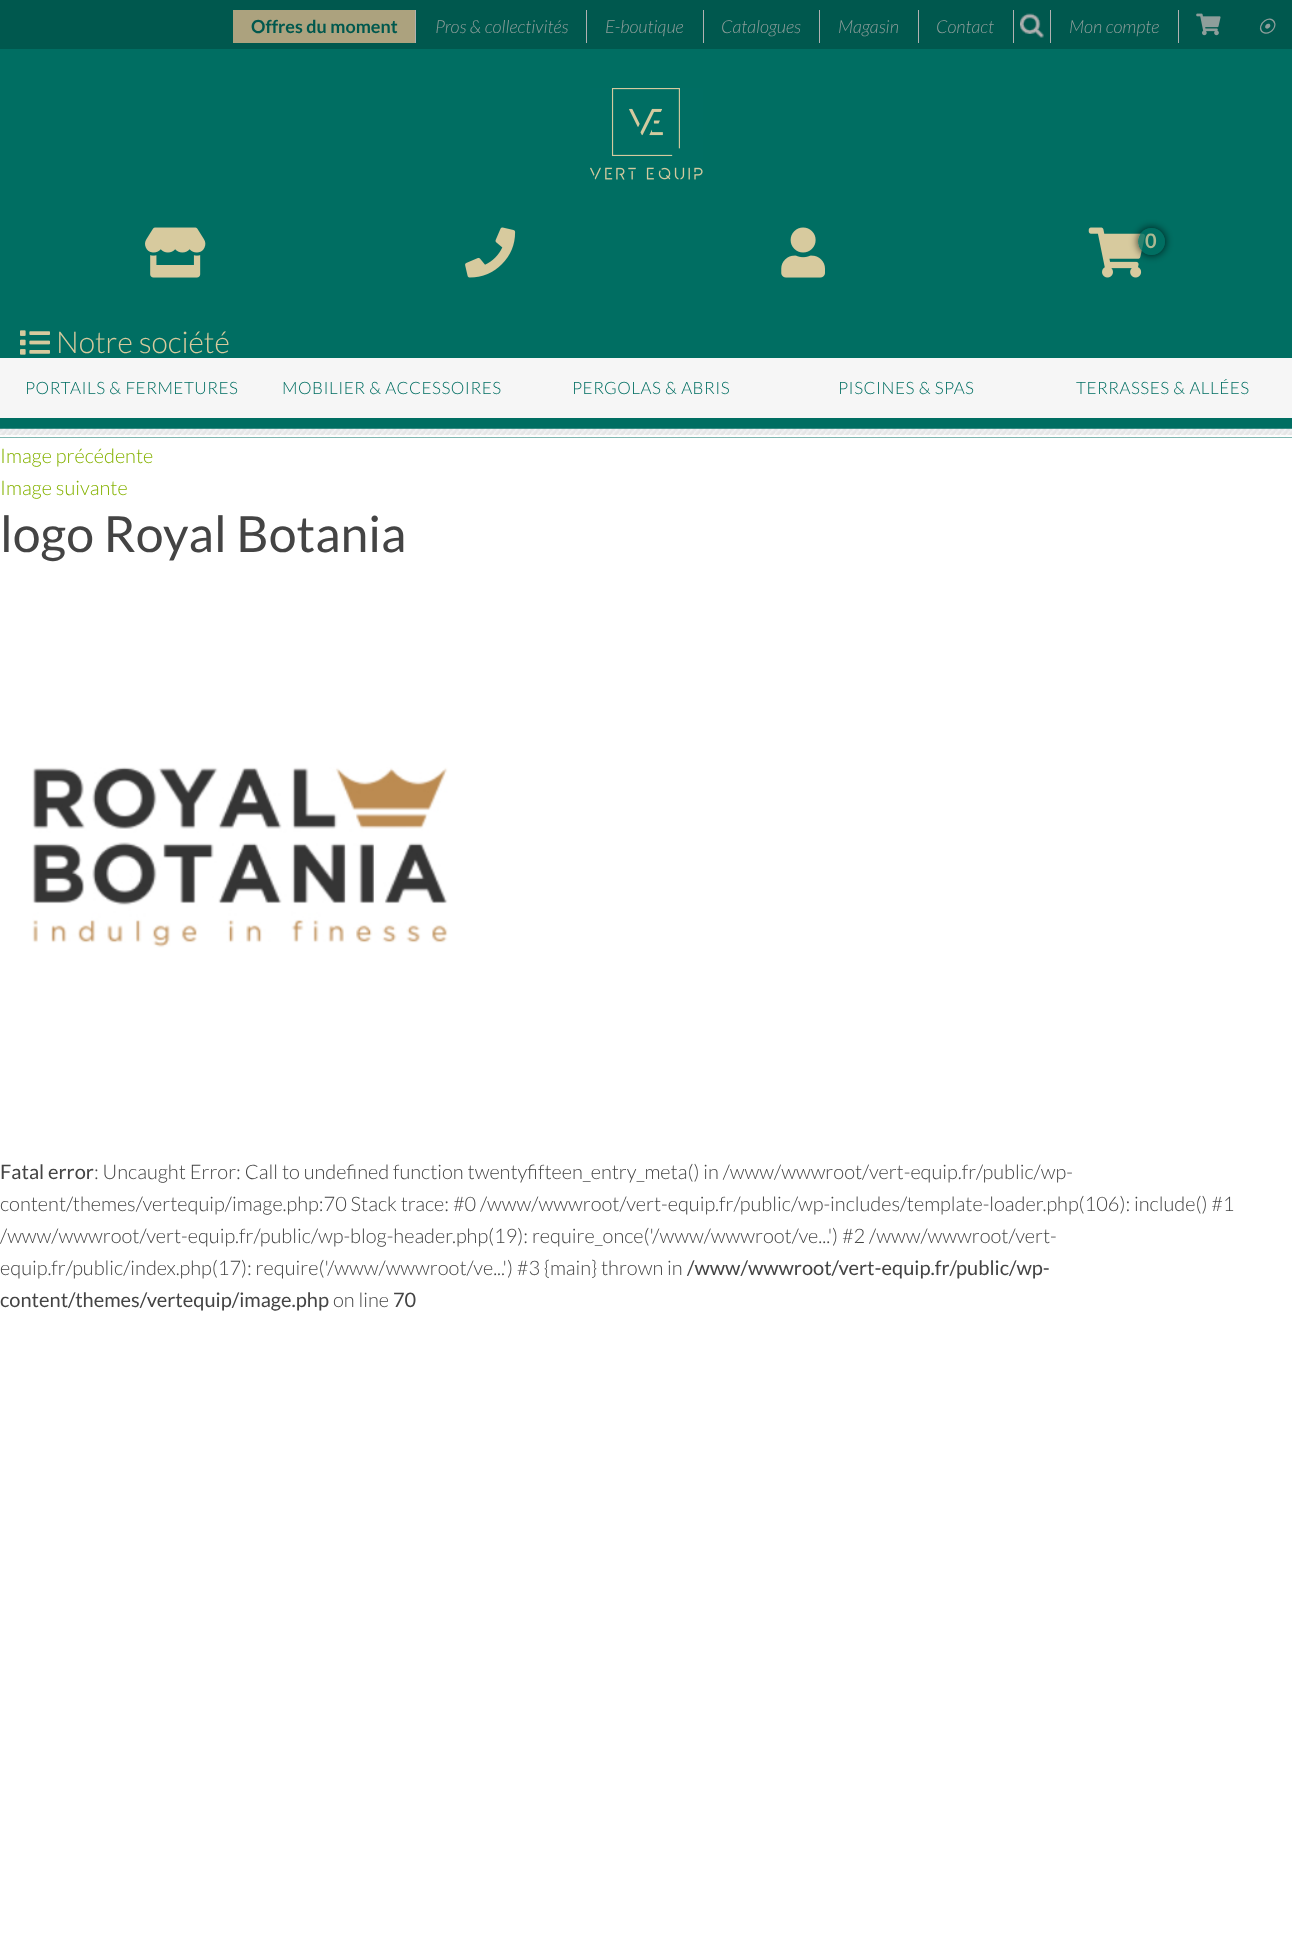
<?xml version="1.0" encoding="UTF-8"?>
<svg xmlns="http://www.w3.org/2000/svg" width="1292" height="1950">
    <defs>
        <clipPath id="clip1"><path d="M 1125 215 H 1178 V 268 H 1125 Z M 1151.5 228 C 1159 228 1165 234 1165 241.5 C 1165 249 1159 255 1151.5 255 C 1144 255 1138 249 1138 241.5 C 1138 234 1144 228 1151.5 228 Z" clip-rule="evenodd"/></clipPath>
        <filter id="blur1" x="-50%" y="-200%" width="200%" height="500%"><feGaussianBlur stdDeviation="4"/></filter>
    </defs>
    <rect width="100%" height="100%" fill="#FFFFFF"/>
    <rect x="0" y="49" width="1292" height="389" fill="#006E62"/>
    <image x="0" y="428" width="1292" height="10" href="img_01.png"/>
    <rect x="0" y="0" width="1292" height="49" fill="#00584E"/>
    <rect x="233" y="10" width="182" height="33" fill="#ACA27E"/>
    <text x="251" y="33" font-family="Lato" font-size="18" font-weight="700" fill="#00584E">Offres du moment</text>
    <rect x="415" y="10" width="1" height="33" fill="#B1B1B1"/>
    <text x="435" y="33" font-family="Lato" font-size="18" font-weight="300" font-style="italic" fill="#8E9E9B">Pros &amp; collectivités</text>
    <rect x="586" y="10" width="1" height="33" fill="#B1B1B1"/>
    <text x="605" y="33" font-family="Lato" font-size="18" font-weight="300" font-style="italic" fill="#8E9E9B">E-boutique</text>
    <rect x="703" y="10" width="1" height="33" fill="#B1B1B1"/>
    <text x="721" y="33" font-family="Lato" font-size="18" font-weight="300" font-style="italic" fill="#8E9E9B">Catalogues</text>
    <rect x="819" y="10" width="1" height="33" fill="#B1B1B1"/>
    <text x="838" y="33" font-family="Lato" font-size="18" font-weight="300" font-style="italic" fill="#8E9E9B">Magasin</text>
    <rect x="918" y="10" width="1" height="33" fill="#B1B1B1"/>
    <text x="936" y="33" font-family="Lato" font-size="18" font-weight="300" font-style="italic" fill="#8E9E9B">Contact</text>
    <image x="1020" y="13" width="24" height="25" href="img_02.png"/>
    <rect x="1013" y="10" width="1" height="33" fill="#B1B1B1"/>
    <rect x="1050" y="10" width="1" height="33" fill="#B1B1B1"/>
    <text x="1069" y="33" font-family="Lato" font-size="18" font-weight="300" font-style="italic" fill="#8E9E9B">Mon compte</text>
    <rect x="1178" y="10" width="1" height="33" fill="#B1B1B1"/>
    <image x="1196" y="13" width="25" height="23" href="img_03.png"/>
    <text x="1257" y="33" font-family="IPAGothic" font-size="18" font-style="italic" fill="#8E9E9B">⦿</text>
    <image x="590" y="88" width="113" height="92" href="img_04.png"/>
    <image x="145" y="227" width="61" height="51" href="img_05.png"/>
    <image x="465" y="227" width="51" height="51" href="img_06.png"/>
    <image x="781" y="227" width="44" height="51" href="img_07.png"/>
    <image x="1088" y="227" width="57" height="51" href="img_08.png"/>
    <g clip-path="url(#clip1)">
        <rect x="1138" y="228" width="27" height="27" rx="13.5" fill="#000000" fill-opacity="0.8" filter="url(#blur1)"/>
    </g>
    <circle cx="1151.5" cy="241.5" r="13.5" fill="#006E62" fill-opacity="0.8"/>
    <text x="1145" y="248" font-family="Lato" font-size="20" font-weight="700" fill="#ACB892">0</text>
    <image x="20" y="330" width="30" height="25" href="img_09.png"/>
    <text x="56" y="353" font-family="Lato" font-size="30" font-weight="300" fill="#D7CA9E">Notre société</text>
    <rect x="0" y="358" width="1292" height="60" fill="#F6F6F6"/>
    <text x="25" y="394" font-family="Lato" font-size="17" font-weight="300" letter-spacing="0.5" fill="#006E62">PORTAILS &amp; FERMETURES</text>
    <text x="282" y="394" font-family="Lato" font-size="17" font-weight="300" letter-spacing="0.5" fill="#006E62">MOBILIER &amp; ACCESSOIRES</text>
    <text x="572" y="394" font-family="Lato" font-size="17" font-weight="300" letter-spacing="0.5" fill="#006E62">PERGOLAS &amp; ABRIS</text>
    <text x="838" y="394" font-family="Lato" font-size="17" font-weight="300" letter-spacing="0.5" fill="#006E62">PISCINES &amp; SPAS</text>
    <text x="1076" y="394" font-family="Lato" font-size="17" font-weight="300" letter-spacing="0.5" fill="#006E62">TERRASSES &amp; ALLÉES</text>
    <text font-family="Lato" font-size="20" font-weight="300" fill="#85B200">
        <tspan x="0" y="463">Image précédente</tspan>
        <tspan x="0" y="495">Image suivante</tspan>
    </text>
    <text x="0" y="552" font-family="Lato" font-size="50" fill="#444444">logo Royal Botania</text>
    <image x="32" y="767" width="416" height="181" href="img_10.png"/>
    <text x="0" y="1179" font-family="Lato" font-size="20" fill="#444444">Fatal error</text>
    <text x="94" y="1179" font-family="Lato" font-size="20" font-weight="300" fill="#444444">: Uncaught Error: Call to undefined function twentyfifteen_entry_meta() in /www/wwwroot/vert-equip.fr/public/wp-</text>
    <text font-family="Lato" font-size="20" font-weight="300" fill="#444444">
        <tspan x="0" y="1211">content/themes/vertequip/image.php:70 Stack trace: #0 /www/wwwroot/vert-equip.fr/public/wp-includes/template-loader.php(106): include() #1</tspan>
        <tspan x="0" y="1243">/www/wwwroot/vert-equip.fr/public/wp-blog-header.php(19): require_once('/www/wwwroot/ve...') #2 /www/wwwroot/vert-</tspan>
        <tspan x="0" y="1275">equip.fr/public/index.php(17): require('/www/wwwroot/ve...') #3 {main} thrown in</tspan>
    </text>
    <text x="687" y="1275" font-family="Lato" font-size="20" fill="#444444">/www/wwwroot/vert-equip.fr/public/wp-</text>
    <text x="0" y="1307" font-family="Lato" font-size="20" fill="#444444">content/themes/vertequip/image.php</text>
    <text x="333" y="1307" font-family="Lato" font-size="20" font-weight="300" fill="#444444">on line</text>
    <text x="393" y="1307" font-family="Lato" font-size="20" fill="#444444">70</text>
</svg>
